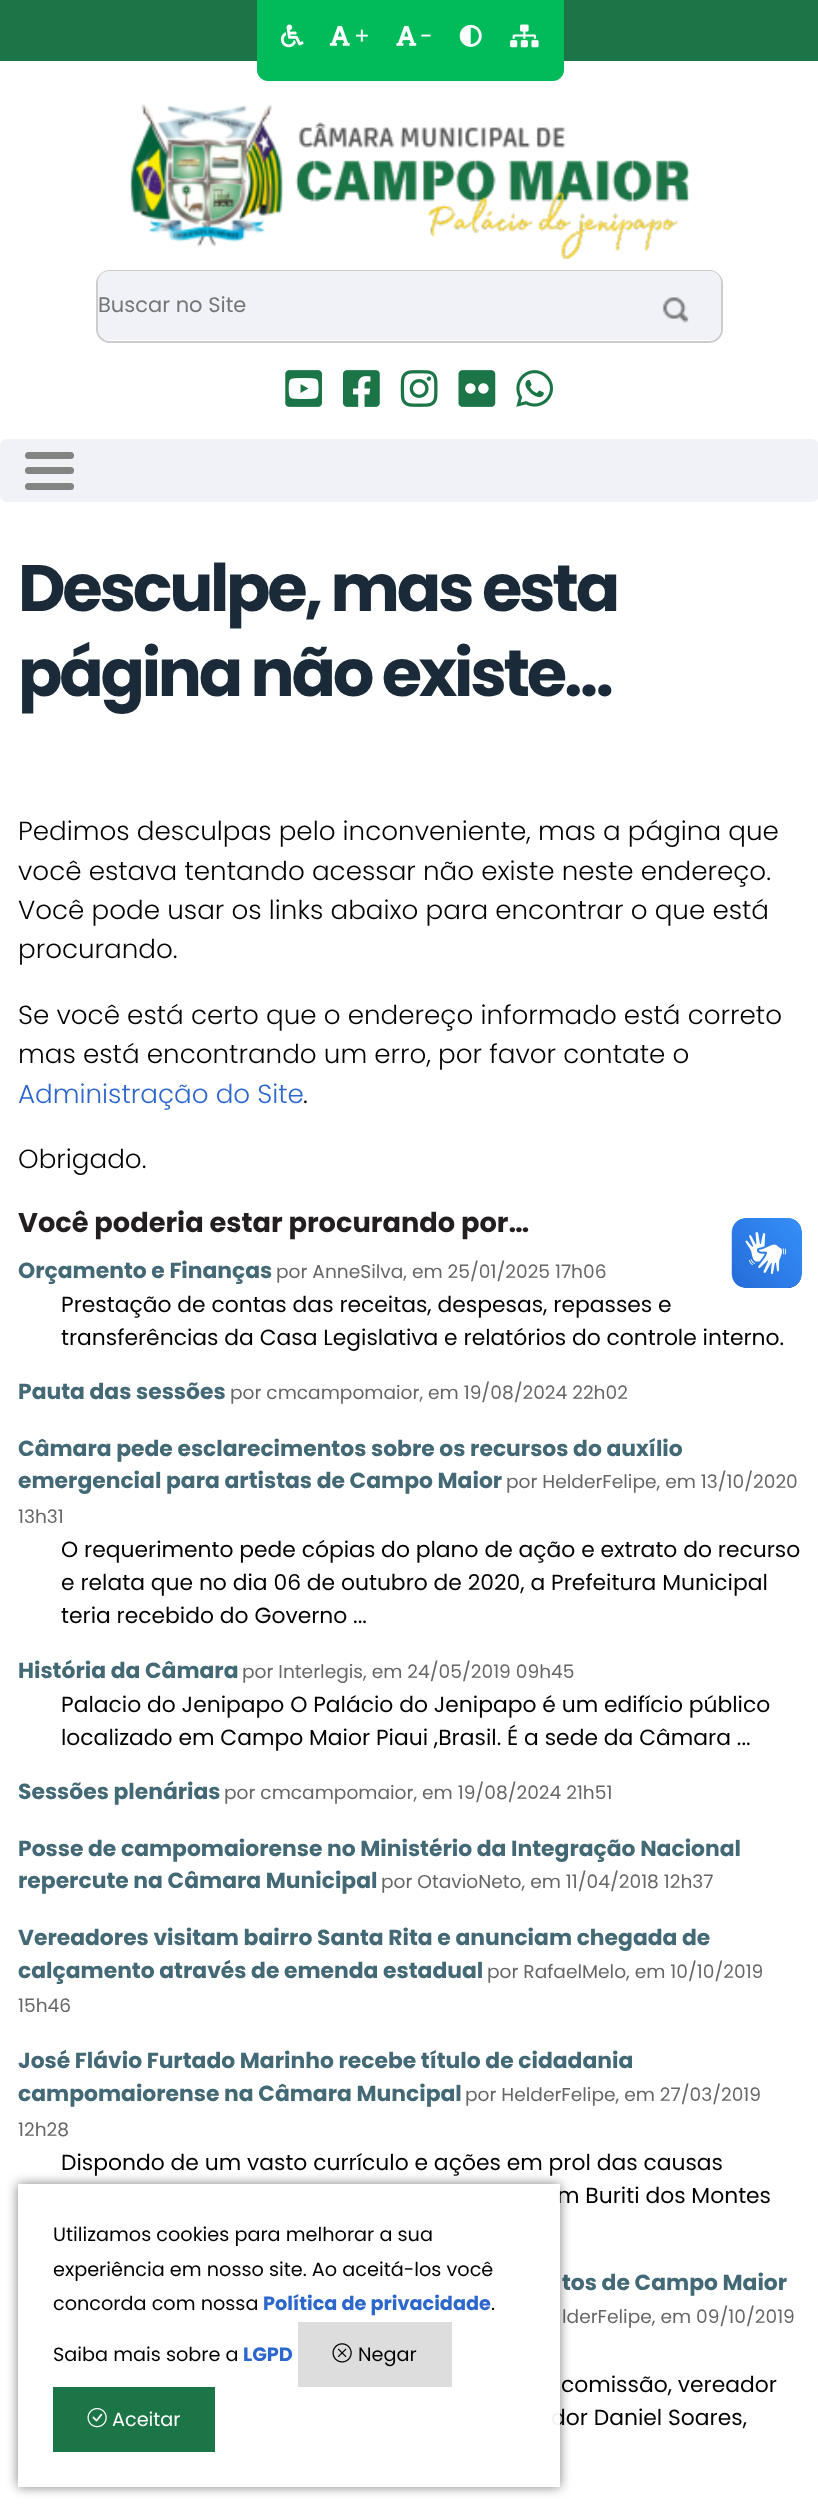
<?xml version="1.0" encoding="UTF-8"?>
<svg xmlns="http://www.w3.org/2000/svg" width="818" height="2504">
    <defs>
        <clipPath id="clip1"><path d="M 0 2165 H 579 V 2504 H 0 Z M 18 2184 H 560 V 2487 H 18 Z" clip-rule="evenodd"/></clipPath>
        <filter id="blur1" x="-50%" y="-200%" width="200%" height="500%"><feGaussianBlur stdDeviation="6"/></filter>
    </defs>
    <rect width="100%" height="100%" fill="#FFFFFF"/>
    <rect x="0" y="0" width="818" height="61" fill="#1B7546"/>
    <path d="M 257 0 H 564 V 70 C 564 76 559 81 553 81 H 268 C 262 81 257 76 257 70 Z" fill="#01BB5A"/>
    <image x="280" y="24" width="24" height="24" href="img_01.png"/>
    <image x="329" y="25" width="21" height="21" href="img_02.png"/>
    <text x="354" y="44" font-family="Poppins" font-size="23" fill="#FFFFFF">+</text>
    <image x="396" y="25" width="21" height="21" href="img_03.png"/>
    <text x="420" y="44" font-family="Poppins" font-size="23" fill="#FFFFFF">-</text>
    <image x="459" y="24" width="23" height="23" href="img_04.png"/>
    <image x="510" y="24" width="29" height="24" href="img_05.png"/>
    <image x="129" y="104" width="561" height="155" href="img_06.png"/>
    <rect x="97" y="271" width="625" height="71" rx="13" fill="none" stroke="#CCCCCC" stroke-width="2"/>
    <rect x="98" y="271" width="623" height="69" rx="11" fill="#F0F2F8"/>
    <text x="98" y="312" font-family="Poppins" font-size="21" fill="#757575">Buscar no Site</text>
    <image x="662" y="297" width="27" height="26" href="img_07.png"/>
    <image x="285" y="370" width="37" height="37" href="img_08.png"/>
    <image x="343" y="370" width="37" height="37" href="img_09.png"/>
    <image x="400" y="370" width="38" height="37" href="img_10.png"/>
    <image x="458" y="370" width="38" height="37" href="img_11.png"/>
    <image x="516" y="370" width="37" height="37" href="img_12.png"/>
    <rect x="0" y="439" width="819" height="63" rx="7" fill="#F0F2F8"/>
    <rect x="25" y="452" width="49" height="7" rx="3.5" fill="#818582"/>
    <rect x="25" y="467" width="49" height="7" rx="3.5" fill="#818582"/>
    <rect x="25" y="483" width="49" height="7" rx="3.5" fill="#818582"/>
    <text font-family="Poppins" font-size="65.5" font-weight="700" letter-spacing="-3.25" fill="#1A2A39">
        <tspan x="18" y="611">Desculpe, mas esta</tspan>
        <tspan x="18" y="696">página não existe…</tspan>
    </text>
    <text font-family="Poppins" font-size="26.2" font-weight="300" fill="#000000">
        <tspan x="18" y="840">Pedimos desculpas pelo inconveniente, mas a página que</tspan>
        <tspan x="18" y="880">você estava tentando acessar não existe neste endereço.</tspan>
        <tspan x="18" y="919">Você pode usar os links abaixo para encontrar o que está</tspan>
        <tspan x="18" y="958">procurando.</tspan>
    </text>
    <text font-family="Poppins" font-size="26.2" font-weight="300" fill="#000000">
        <tspan x="18" y="1024">Se você está certo que o endereço informado está correto</tspan>
        <tspan x="18" y="1063">mas está encontrando um erro, por favor contate o</tspan>
    </text>
    <text x="18" y="1103" font-family="Poppins" font-size="26.2" font-weight="300" fill="#2C67CD">Administração do Site</text>
    <text x="303" y="1103" font-family="Poppins" font-size="26.2" font-weight="300" fill="#000000">.</text>
    <text x="18" y="1168" font-family="Poppins" font-size="26.2" font-weight="300" fill="#000000">Obrigado.</text>
    <text x="18" y="1232" font-family="Poppins" font-size="27.25" font-weight="700" fill="#231F20">Você poderia estar procurando por…</text>
    <text x="18" y="1278" font-family="Poppins" font-size="21.85" font-weight="700" fill="#436976">Orçamento e Finanças</text>
    <text x="276" y="1278" font-family="Poppins" font-size="18.6" fill="#666666">por AnneSilva, em 25/01/2025 17h06</text>
    <text font-family="Poppins" font-size="21.85" fill="#000000">
        <tspan x="61" y="1312">Prestação de contas das receitas, despesas, repasses e</tspan>
        <tspan x="61" y="1345">transferências da Casa Legislativa e relatórios do controle interno.</tspan>
    </text>
    <text x="18" y="1399" font-family="Poppins" font-size="21.85" font-weight="700" fill="#436976">Pauta das sessões</text>
    <text x="230" y="1399" font-family="Poppins" font-size="18.6" fill="#666666">por cmcampomaior, em 19/08/2024 22h02</text>
    <text font-family="Poppins" font-size="21.85" font-weight="700" fill="#436976">
        <tspan x="18" y="1456">Câmara pede esclarecimentos sobre os recursos do auxílio</tspan>
        <tspan x="18" y="1488">emergencial para artistas de Campo Maior</tspan>
    </text>
    <text x="506" y="1488" font-family="Poppins" font-size="18.6" fill="#666666">por HelderFelipe, em 13/10/2020</text>
    <text x="18" y="1523" font-family="Poppins" font-size="18.6" fill="#666666">13h31</text>
    <text font-family="Poppins" font-size="21.85" fill="#000000">
        <tspan x="61" y="1557">O requerimento pede cópias do plano de ação e extrato do recurso</tspan>
        <tspan x="61" y="1590">e relata que no dia 06 de outubro de 2020, a Prefeitura Municipal</tspan>
        <tspan x="61" y="1623">teria recebido do Governo ...</tspan>
    </text>
    <text x="18" y="1678" font-family="Poppins" font-size="21.85" font-weight="700" fill="#436976">História da Câmara</text>
    <text x="242" y="1678" font-family="Poppins" font-size="18.6" fill="#666666">por Interlegis, em 24/05/2019 09h45</text>
    <text font-family="Poppins" font-size="21.85" fill="#000000">
        <tspan x="61" y="1712">Palacio do Jenipapo O Palácio do Jenipapo é um edifício público</tspan>
        <tspan x="61" y="1745">localizado em Campo Maior Piaui ,Brasil. É a sede da Câmara ...</tspan>
    </text>
    <text x="18" y="1799" font-family="Poppins" font-size="21.85" font-weight="700" fill="#436976">Sessões plenárias</text>
    <text x="224" y="1799" font-family="Poppins" font-size="18.6" fill="#666666">por cmcampomaior, em 19/08/2024 21h51</text>
    <text font-family="Poppins" font-size="21.85" font-weight="700" fill="#436976">
        <tspan x="18" y="1856">Posse de campomaiorense no Ministério da Integração Nacional</tspan>
        <tspan x="18" y="1888">repercute na Câmara Municipal</tspan>
    </text>
    <text x="381" y="1888" font-family="Poppins" font-size="18.6" fill="#666666">por OtavioNeto, em 11/04/2018 12h37</text>
    <text font-family="Poppins" font-size="21.85" font-weight="700" fill="#436976">
        <tspan x="18" y="1945">Vereadores visitam bairro Santa Rita e anunciam chegada de</tspan>
        <tspan x="18" y="1978">calçamento através de emenda estadual</tspan>
    </text>
    <text x="487" y="1978" font-family="Poppins" font-size="18.6" fill="#666666">por RafaelMelo, em 10/10/2019</text>
    <text x="18" y="2012" font-family="Poppins" font-size="18.6" fill="#666666">15h46</text>
    <text font-family="Poppins" font-size="21.85" font-weight="700" fill="#436976">
        <tspan x="18" y="2068">José Flávio Furtado Marinho recebe título de cidadania</tspan>
        <tspan x="18" y="2101">campomaiorense na Câmara Muncipal</tspan>
    </text>
    <text x="465" y="2101" font-family="Poppins" font-size="18.6" fill="#666666">por HelderFelipe, em 27/03/2019</text>
    <text x="18" y="2136" font-family="Poppins" font-size="18.6" fill="#666666">12h28</text>
    <text x="61" y="2170" font-family="Poppins" font-size="21.85" fill="#000000">Dispondo de um vasto currículo e ações em prol das causas</text>
    <text x="557" y="2203" font-family="Poppins" font-size="21.85" fill="#000000">m Buriti dos Montes</text>
    <text x="562" y="2290" font-family="Poppins" font-size="21.85" font-weight="700" fill="#436976">tos de Campo Maior</text>
    <text x="562" y="2323" font-family="Poppins" font-size="18.6" fill="#666666">lderFelipe, em 09/10/2019</text>
    <text x="561" y="2392" font-family="Poppins" font-size="21.85" fill="#000000">comissão, vereador</text>
    <text x="551" y="2425" font-family="Poppins" font-size="21.85" fill="#000000">dor Daniel Soares,</text>
    <image x="731" y="1218" width="71" height="70" href="img_13.png"/>
    <image x="732" y="1218" width="70" height="70" href="img_14.png"/>
    <g clip-path="url(#clip1)">
        <rect x="18" y="2184" width="542" height="303" fill="#000000" fill-opacity="0.5" filter="url(#blur1)"/>
    </g>
    <rect x="18" y="2191" width="542" height="296" fill="#FFFFFF" fill-opacity="0.95"/>
    <text font-family="Poppins" font-size="19.25" fill="#000000">
        <tspan x="53" y="2241">Utilizamos cookies para melhorar a sua</tspan>
        <tspan x="53" y="2276">experiência em nosso site. Ao aceitá-los você</tspan>
        <tspan x="53" y="2310">concorda com nossa</tspan>
    </text>
    <text x="263" y="2310" font-family="Poppins" font-size="19.25" font-weight="700" fill="#2C67CD">Política de privacidade</text>
    <text x="491" y="2310" font-family="Poppins" font-size="19.25" fill="#000000">.</text>
    <text x="53" y="2361" font-family="Poppins" font-size="19.25" fill="#000000">Saiba mais sobre a</text>
    <text x="243" y="2361" font-family="Poppins" font-size="19.25" font-weight="700" fill="#2C67CD">LGPD</text>
    <rect x="298" y="2322" width="154" height="65" fill="#DDDDDD"/>
    <image x="332" y="2343" width="20" height="20" href="img_15.png"/>
    <text x="358" y="2361" font-family="Poppins" font-size="19.25" fill="#000000">Negar</text>
    <rect x="53" y="2387" width="162" height="65" fill="#1B7546"/>
    <image x="87" y="2408" width="20" height="20" href="img_16.png"/>
    <text x="112" y="2426" font-family="Poppins" font-size="19.25" fill="#FFFFFF">Aceitar</text>
</svg>
